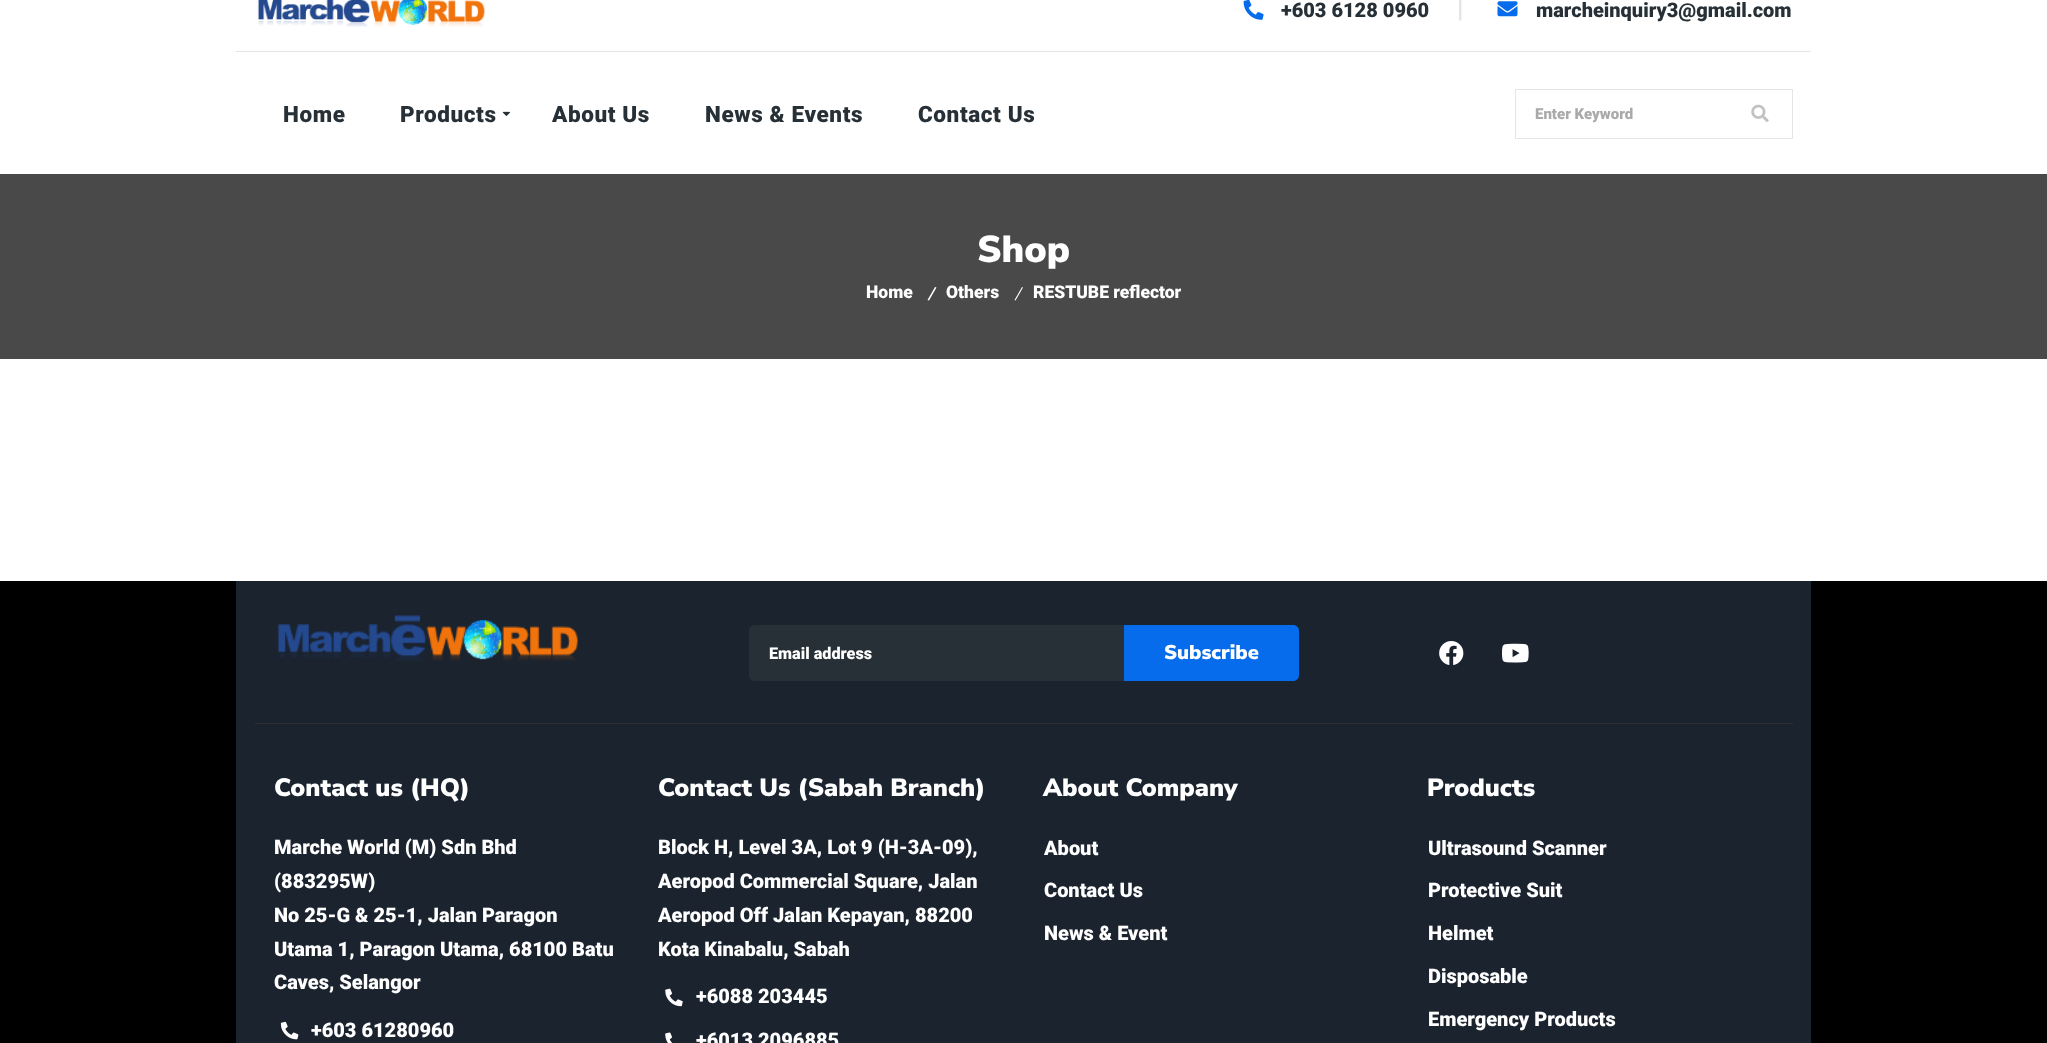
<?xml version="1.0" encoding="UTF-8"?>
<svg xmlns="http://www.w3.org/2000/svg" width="2047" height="1043">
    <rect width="100%" height="100%" fill="#FFFFFF"/>
    <rect x="236" y="51" width="1575" height="1" fill="#E4E4E4"/>
    <image x="257" y="0" width="228" height="27" href="img_01.png"/>
    <image x="1243" y="0" width="21" height="20" href="img_02.png"/>
    <text x="1281" y="17" font-family="Roboto" font-size="20" font-weight="900" fill="#263036">+603 6128 0960</text>
    <text x="1457" y="17" font-family="Roboto" font-size="25" font-weight="900" fill="#E4E4E4">|</text>
    <image x="1497" y="1" width="21" height="16" href="img_03.png"/>
    <text x="1536" y="17" font-family="Roboto" font-size="20" font-weight="900" fill="#263036">marcheinquiry3@gmail.com</text>
    <text x="283" y="122" font-family="Roboto" font-size="22.5" font-weight="900" letter-spacing="0.6" fill="#263036">Home</text>
    <text x="400" y="122" font-family="Roboto" font-size="22.5" font-weight="900" letter-spacing="0.6" fill="#263036">Products</text>
    <image x="502" y="111" width="8" height="5" href="img_04.png"/>
    <text x="552" y="122" font-family="Roboto" font-size="22.5" font-weight="900" letter-spacing="0.6" fill="#263036">About Us</text>
    <text x="705" y="122" font-family="Roboto" font-size="22.5" font-weight="900" letter-spacing="0.6" fill="#263036">News &amp; Events</text>
    <text x="918" y="122" font-family="Roboto" font-size="22.5" font-weight="900" letter-spacing="0.6" fill="#263036">Contact Us</text>
    <rect x="1515.5" y="89.5" width="277" height="49" fill="none" stroke="#E5E5E5"/>
    <text x="1535" y="119" font-family="Roboto" font-size="15" font-weight="900" fill="#AAAAAA">Enter Keyword</text>
    <image x="1751" y="104" width="18" height="18" href="img_05.png"/>
    <rect x="0" y="174" width="2047" height="185" fill="#494949"/>
    <text x="977" y="262" font-family="Nunito Sans" font-size="37.5" font-weight="900" fill="#FFFFFF">Shop</text>
    <text x="866" y="298" font-family="Roboto" font-size="17.5" font-weight="900" fill="#FFFFFF">Home</text>
    <path d="M 935 287 L 936.5 287.5 L 929 300.5 L 927.5 300 Z" fill="#FFFFFF"/>
    <text x="946" y="298" font-family="Roboto" font-size="17.5" font-weight="900" fill="#FFFFFF">Others</text>
    <path d="M 1022 287 L 1023 287.5 L 1015.5 300.5 L 1014.5 300 Z" fill="#FFFFFF"/>
    <text x="1033" y="298" font-family="Roboto" font-size="17.5" font-weight="900" fill="#FFFFFF">RESTUBE reflector</text>
    <rect x="0" y="581" width="2047" height="462" fill="#000000"/>
    <rect x="236" y="581" width="1575" height="462" fill="#1B232F"/>
    <rect x="255" y="723" width="1538" height="1" fill="#2F2E2E"/>
    <image x="277" y="615" width="301" height="46" href="img_06.png"/>
    <path d="M 755 625 H 1124 V 681 H 755 C 751.5 681 749 678.5 749 675 V 631 C 749 627.5 751.5 625 755 625 Z" fill="#263036"/>
    <text x="769" y="659" font-family="Roboto" font-size="16.25" font-weight="900" fill="#FFFFFF">Email address</text>
    <path d="M 1124 625 H 1293 C 1296.5 625 1299 627.5 1299 631 V 675 C 1299 678.5 1296.5 681 1293 681 H 1124 Z" fill="#076CEC"/>
    <text x="1164" y="659" font-family="Nunito Sans" font-size="20" font-weight="900" fill="#FFFFFF">Subscribe</text>
    <image x="1439" y="641" width="25" height="24" href="img_07.png"/>
    <image x="1502" y="643" width="27" height="20" href="img_08.png"/>
    <text x="274" y="796" font-family="Nunito Sans" font-size="25" font-weight="900" fill="#FFFFFF">Contact us (HQ)</text>
    <text font-family="Roboto" font-size="20" font-weight="900" fill="#FFFFFF">
        <tspan x="274" y="854">Marche World (M) Sdn Bhd</tspan>
        <tspan x="274" y="888">(883295W)</tspan>
        <tspan x="274" y="922">No 25-G &amp; 25-1, Jalan Paragon</tspan>
        <tspan x="274" y="956">Utama 1, Paragon Utama, 68100 Batu</tspan>
        <tspan x="274" y="989">Caves, Selangor</tspan>
    </text>
    <image x="280" y="1021" width="19" height="19" href="img_09.png"/>
    <text x="311" y="1037" font-family="Roboto" font-size="20" font-weight="900" fill="#FFFFFF">+603 61280960</text>
    <text x="658" y="796" font-family="Nunito Sans" font-size="25" font-weight="900" fill="#FFFFFF">Contact Us (Sabah Branch)</text>
    <text font-family="Roboto" font-size="20" font-weight="900" fill="#FFFFFF">
        <tspan x="658" y="854">Block H, Level 3A, Lot 9 (H-3A-09),</tspan>
        <tspan x="658" y="888">Aeropod Commercial Square, Jalan</tspan>
        <tspan x="658" y="922">Aeropod Off Jalan Kepayan, 88200</tspan>
        <tspan x="658" y="956">Kota Kinabalu, Sabah</tspan>
    </text>
    <image x="665" y="988" width="18" height="19" href="img_10.png"/>
    <text x="696" y="1003" font-family="Roboto" font-size="20" font-weight="900" fill="#FFFFFF">+6088 203445</text>
    <image x="665" y="1032" width="8" height="11" href="img_11.png"/>
    <text x="696" y="1047" font-family="Roboto" font-size="20" font-weight="900" fill="#FFFFFF">+6013 2096885</text>
    <text x="1043" y="796" font-family="Nunito Sans" font-size="25" font-weight="900" fill="#FFFFFF">About Company</text>
    <text x="1044" y="855" font-family="Roboto" font-size="20" font-weight="900" fill="#FFFFFF">About</text>
    <text x="1044" y="897" font-family="Roboto" font-size="20" font-weight="900" fill="#FFFFFF">Contact Us</text>
    <text x="1044" y="940" font-family="Roboto" font-size="20" font-weight="900" fill="#FFFFFF">News &amp; Event</text>
    <text x="1427" y="796" font-family="Nunito Sans" font-size="25" font-weight="900" fill="#FFFFFF">Products</text>
    <text x="1428" y="855" font-family="Roboto" font-size="20" font-weight="900" fill="#FFFFFF">Ultrasound Scanner</text>
    <text x="1428" y="897" font-family="Roboto" font-size="20" font-weight="900" fill="#FFFFFF">Protective Suit</text>
    <text x="1428" y="940" font-family="Roboto" font-size="20" font-weight="900" fill="#FFFFFF">Helmet</text>
    <text x="1428" y="983" font-family="Roboto" font-size="20" font-weight="900" fill="#FFFFFF">Disposable</text>
    <text x="1428" y="1026" font-family="Roboto" font-size="20" font-weight="900" fill="#FFFFFF">Emergency Products</text>
</svg>
